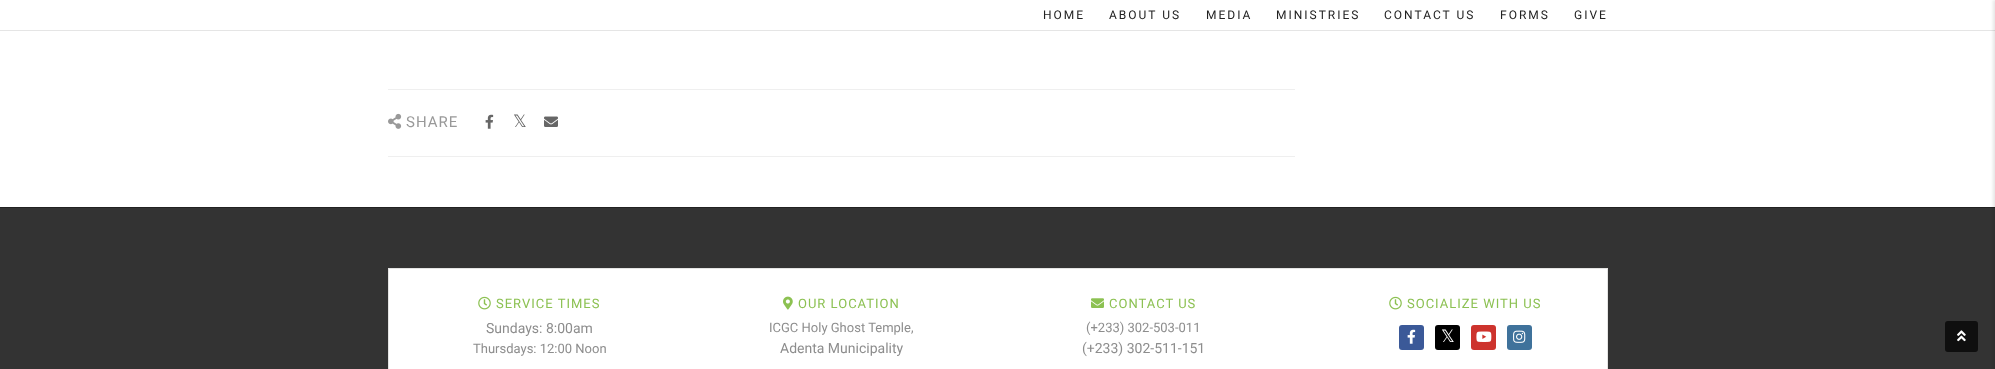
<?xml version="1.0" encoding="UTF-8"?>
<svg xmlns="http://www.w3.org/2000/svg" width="1995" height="369">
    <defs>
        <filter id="blur1" x="-50%" y="-200%" width="200%" height="500%"><feGaussianBlur stdDeviation="0.5"/></filter>
        <filter id="blur2" x="-50%" y="-200%" width="200%" height="500%"><feGaussianBlur stdDeviation="1.5"/></filter>
    </defs>
    <rect width="100%" height="100%" fill="#FFFFFF"/>
    <rect x="0" y="1" width="1995" height="30" fill="#000000" fill-opacity="0.1" filter="url(#blur1)"/>
    <rect x="0" y="0" width="1995" height="30" fill="#FFFFFF"/>
    <text x="1043" y="19" font-family="Roboto" font-size="12" letter-spacing="2" fill="#222222">HOME</text>
    <text x="1109" y="19" font-family="Roboto" font-size="12" letter-spacing="2" fill="#222222">ABOUT US</text>
    <text x="1206" y="19" font-family="Roboto" font-size="12" letter-spacing="2" fill="#222222">MEDIA</text>
    <text x="1276" y="19" font-family="Roboto" font-size="12" letter-spacing="2" fill="#222222">MINISTRIES</text>
    <text x="1384" y="19" font-family="Roboto" font-size="12" letter-spacing="2" fill="#222222">CONTACT US</text>
    <text x="1500" y="19" font-family="Roboto" font-size="12" letter-spacing="2" fill="#222222">FORMS</text>
    <text x="1574" y="19" font-family="Roboto" font-size="12" letter-spacing="2" fill="#222222">GIVE</text>
    <rect x="388" y="89" width="907" height="1" fill="#EFEFEF"/>
    <rect x="388" y="156" width="907" height="1" fill="#EFEFEF"/>
    <image x="388" y="113" width="14" height="16" href="img_01.png"/>
    <text x="406" y="127" font-family="Roboto" font-size="15" letter-spacing="1" fill="#999999">SHARE</text>
    <image x="485" y="114" width="9" height="15" href="img_02.png"/>
    <text x="513" y="127" font-family="DejaVu Sans" font-size="17" fill="#666666">𝕏</text>
    <image x="544" y="116" width="14" height="11" href="img_03.png"/>
    <rect x="0" y="208" width="1995" height="161" fill="#333333"/>
    <rect x="0" y="207" width="1995" height="1" fill="#222222"/>
    <rect x="388.5" y="268.5" width="1219" height="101" fill="#FFFFFF" stroke="#E4E4E3"/>
    <image x="478" y="296" width="13" height="14" href="img_04.png"/>
    <text x="496" y="308" font-family="Roboto" font-size="13" letter-spacing="1" fill="#8CC152">SERVICE TIMES</text>
    <text x="486" y="333" font-family="Roboto" font-size="14" fill="#8D8D8D">Sundays: 8:00am</text>
    <text x="473" y="353" font-family="Roboto" font-size="13" fill="#8D8D8D">Thursdays: 12:00 Noon</text>
    <image x="783" y="296" width="10" height="14" href="img_05.png"/>
    <text x="798" y="308" font-family="Roboto" font-size="13" letter-spacing="1" fill="#8CC152">OUR LOCATION</text>
    <text x="769" y="332" font-family="Roboto" font-size="13" fill="#8D8D8D">ICGC Holy Ghost Temple,</text>
    <text x="780" y="353" font-family="Roboto" font-size="14" fill="#8D8D8D">Adenta Municipality</text>
    <image x="1091" y="298" width="13" height="10" href="img_06.png"/>
    <text x="1109" y="308" font-family="Roboto" font-size="13" letter-spacing="1" fill="#8CC152">CONTACT US</text>
    <text x="1086" y="332" font-family="Roboto" font-size="13" fill="#8D8D8D">(+233) 302-503-011</text>
    <text x="1082" y="353" font-family="Roboto" font-size="14" fill="#8D8D8D">(+233) 302-511-151</text>
    <image x="1389" y="296" width="13" height="14" href="img_04.png"/>
    <text x="1407" y="308" font-family="Roboto" font-size="13" letter-spacing="1" fill="#8CC152">SOCIALIZE WITH US</text>
    <rect x="1399" y="325" width="25" height="25" rx="3" fill="#3B5998"/>
    <image x="1407" y="329" width="9" height="15" href="img_07.png"/>
    <rect x="1435" y="325" width="25" height="25" rx="3" fill="#000000"/>
    <text x="1441" y="342" font-family="DejaVu Sans" font-size="17" fill="#FFFFFF">𝕏</text>
    <rect x="1471" y="325" width="25" height="25" rx="3" fill="#CD332D"/>
    <image x="1476" y="331" width="16" height="11" href="img_08.png"/>
    <rect x="1507" y="325" width="25" height="25" rx="3" fill="#3F729B"/>
    <image x="1513" y="330" width="13" height="13" href="img_09.png"/>
    <rect x="1945" y="321" width="33" height="31" rx="3" fill="#0F0F0F"/>
    <image x="1957" y="330" width="9" height="12" href="img_10.png"/>
    <rect x="1993" y="0" width="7" height="369" fill="#000000" fill-opacity="0.1" filter="url(#blur2)"/>
</svg>
